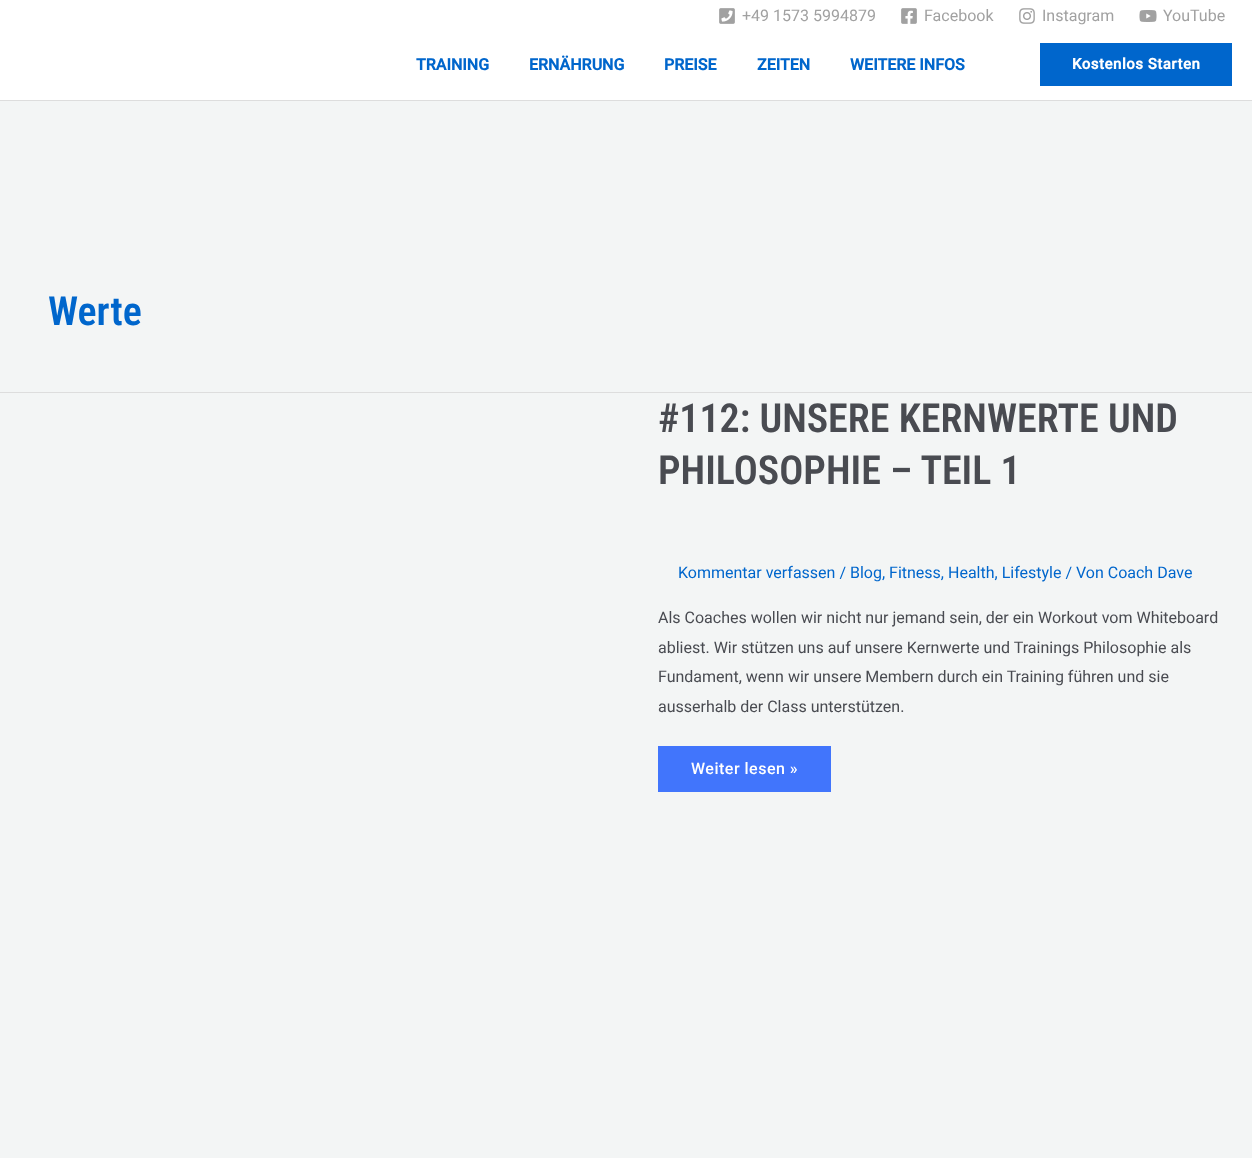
<?xml version="1.0" encoding="UTF-8"?>
<svg xmlns="http://www.w3.org/2000/svg" width="1252" height="1158">
    <rect width="100%" height="100%" fill="#F3F5F5"/>
    <rect x="0" y="0" width="1252" height="100" fill="#FFFFFF"/>
    <image x="719" y="8" width="16" height="16" href="img_01.png"/>
    <text x="742" y="21" font-family="Roboto" font-size="16" fill="#A1A1A1">+49 1573 5994879</text>
    <image x="901" y="8" width="16" height="16" href="img_02.png"/>
    <text x="924" y="21" font-family="Roboto" font-size="16" fill="#A1A1A1">Facebook</text>
    <image x="1019" y="8" width="16" height="16" href="img_03.png"/>
    <text x="1042" y="21" font-family="Roboto" font-size="16" fill="#A1A1A1">Instagram</text>
    <image x="1139" y="10" width="18" height="12" href="img_04.png"/>
    <text x="1163" y="21" font-family="Roboto" font-size="16" fill="#A1A1A1">YouTube</text>
    <rect x="0" y="100" width="1252" height="1" fill="#DDDDDD"/>
    <text x="416" y="70" font-family="Roboto" font-size="16" font-weight="700" fill="#0066CC">TRAINING</text>
    <text x="529" y="70" font-family="Roboto" font-size="16" font-weight="700" fill="#0066CC">ERNÄHRUNG</text>
    <text x="664" y="70" font-family="Roboto" font-size="16" font-weight="700" fill="#0066CC">PREISE</text>
    <text x="757" y="70" font-family="Roboto" font-size="16" font-weight="700" fill="#0066CC">ZEITEN</text>
    <text x="850" y="70" font-family="Roboto" font-size="16" font-weight="700" fill="#0066CC">WEITERE INFOS</text>
    <rect x="1040" y="43" width="192" height="43" fill="#0066CC"/>
    <text x="1072" y="69" font-family="Roboto" font-size="15" font-weight="700" letter-spacing="0.5" fill="#FFFFFF">Kostenlos Starten</text>
    <rect x="0" y="392" width="1252" height="1" fill="#DDDDDD"/>
    <text x="48" y="325" font-family="Roboto Condensed" font-size="40" font-weight="600" fill="#0066CC">Werte</text>
    <text font-family="Roboto Condensed" font-size="40" font-weight="600" fill="#494B51">
        <tspan x="658" y="432">#112: UNSERE KERNWERTE UND</tspan>
        <tspan x="658" y="484">PHILOSOPHIE – TEIL 1</tspan>
    </text>
    <text x="678" y="578" font-family="Roboto" font-size="16" fill="#0066CC">Kommentar verfassen / Blog, Fitness, Health, Lifestyle / Von Coach Dave</text>
    <text font-family="Roboto" font-size="16" fill="#494B51">
        <tspan x="658" y="623">Als Coaches wollen wir nicht nur jemand sein, der ein Workout vom Whiteboard</tspan>
        <tspan x="658" y="653">abliest. Wir stützen uns auf unsere Kernwerte und Trainings Philosophie als</tspan>
        <tspan x="658" y="682">Fundament, wenn wir unsere Membern durch ein Training führen und sie</tspan>
        <tspan x="658" y="712">ausserhalb der Class unterstützen.</tspan>
    </text>
    <rect x="658" y="746" width="173" height="46" fill="#4175FC"/>
    <text x="691" y="774" font-family="Roboto" font-size="16" font-weight="500" letter-spacing="0.5" fill="#FFFFFF">Weiter lesen »</text>
</svg>
